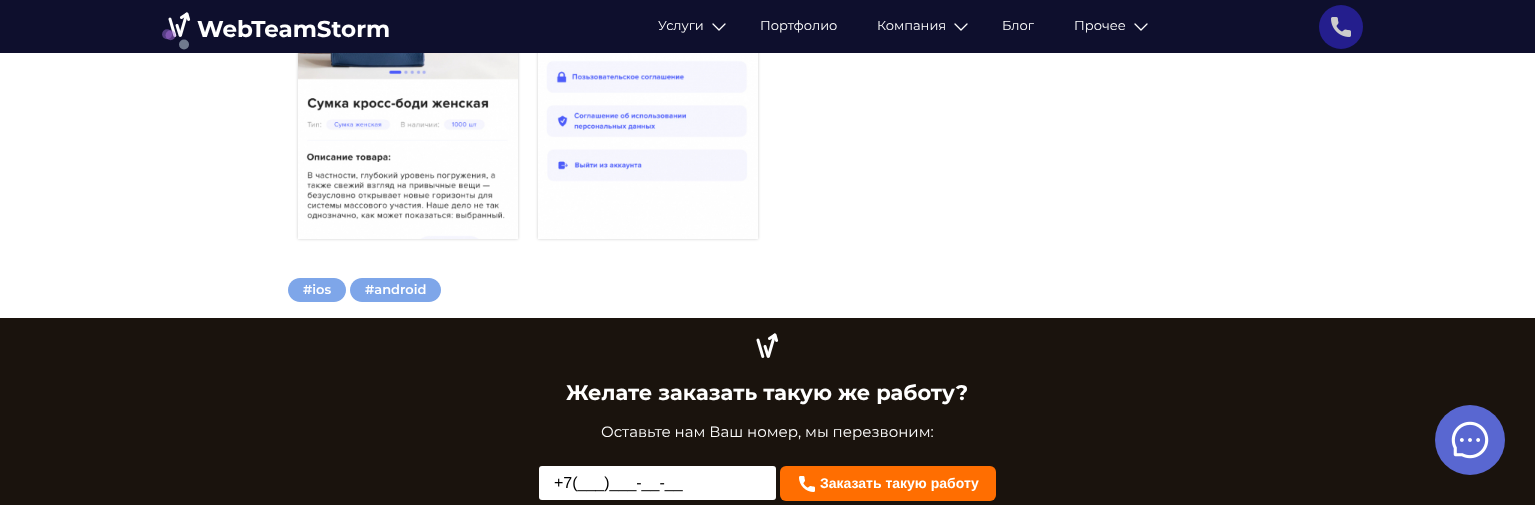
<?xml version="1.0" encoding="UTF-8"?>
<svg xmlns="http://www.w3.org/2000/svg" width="1535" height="505">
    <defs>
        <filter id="blur1" x="-50%" y="-200%" width="200%" height="500%"><feGaussianBlur stdDeviation="1.5"/></filter>
    </defs>
    <rect width="100%" height="100%" fill="#FFFFFF"/>
    <rect x="298" y="-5" width="220" height="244" fill="#000000" fill-opacity="0.2" filter="url(#blur1)"/>
    <rect x="538" y="-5" width="220" height="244" fill="#000000" fill-opacity="0.2" filter="url(#blur1)"/>
    <rect x="0" y="0" width="1535" height="53" fill="#0E0F2D"/>
    <image x="168" y="12" width="23" height="25" href="img_01.png"/>
    <text x="197" y="37" font-family="Montserrat" font-size="23" font-weight="700" fill="#FFFFFF">WebTeamStorm</text>
    <image x="162" y="29" width="27" height="21" href="img_02.png"/>
    <text x="658" y="30" font-family="Montserrat" font-size="13" fill="#FFFFFF">Услуги</text>
    <path d="M 713 24 L 719 30 L 725 24" fill="none" stroke="#FFFFFF" stroke-width="1.3" stroke-linecap="round" stroke-linejoin="round"/>
    <text x="760" y="30" font-family="Montserrat" font-size="13" fill="#FFFFFF">Портфолио</text>
    <text x="877" y="30" font-family="Montserrat" font-size="13" fill="#FFFFFF">Компания</text>
    <path d="M 955 24 L 961 30 L 967 24" fill="none" stroke="#FFFFFF" stroke-width="1.3" stroke-linecap="round" stroke-linejoin="round"/>
    <text x="1002" y="30" font-family="Montserrat" font-size="13" fill="#FFFFFF">Блог</text>
    <text x="1074" y="30" font-family="Montserrat" font-size="13" fill="#FFFFFF">Прочее</text>
    <path d="M 1135 24 L 1141 30 L 1147 24" fill="none" stroke="#FFFFFF" stroke-width="1.3" stroke-linecap="round" stroke-linejoin="round"/>
    <circle cx="1341" cy="27" r="22" fill="#241E8D"/>
    <image x="1331" y="17" width="20" height="20" href="img_03.png"/>
    <image x="298" y="53" width="220" height="186" href="img_04.png"/>
    <image x="538" y="53" width="220" height="186" href="img_05.png"/>
    <path d="M 300 278 H 312 V 302 H 300 C 293.5 302 288 296.5 288 290 C 288 283.5 293.5 278 300 278 Z" fill="#7EA6E9"/>
    <path d="M 312 278 H 334 C 340.5 278 346 283.5 346 290 C 346 296.5 340.5 302 334 302 H 312 Z" fill="#7EA6E9"/>
    <text x="303" y="294" font-family="Montserrat" font-size="13" font-weight="600" fill="#FFFFFF">#ios</text>
    <path d="M 362 278 H 374 V 302 H 362 C 355.5 302 350 296.5 350 290 C 350 283.5 355.5 278 362 278 Z" fill="#7EA6E9"/>
    <path d="M 374 278 H 429 C 435.5 278 441 283.5 441 290 C 441 296.5 435.5 302 429 302 H 374 Z" fill="#7EA6E9"/>
    <text x="365" y="294" font-family="Montserrat" font-size="13" font-weight="600" fill="#FFFFFF">#android</text>
    <rect x="0" y="318" width="1535" height="187" fill="#1A130D"/>
    <image x="756" y="333" width="23" height="25" href="img_06.png"/>
    <text x="566" y="400" font-family="Montserrat" font-size="21" font-weight="700" fill="#FFFFFF">Желате заказать такую же работу?</text>
    <text x="601" y="437" font-family="Montserrat" font-size="15" fill="#FFFFFF">Оставьте нам Ваш номер, мы перезвоним:</text>
    <rect x="539" y="466" width="237" height="34" rx="3" fill="#FFFFFF"/>
    <text x="554" y="488" font-family="Liberation Sans" font-size="16" fill="#000000">+7(___)___-__-__</text>
    <rect x="780" y="466" width="216" height="35" rx="6" fill="#FF6E01"/>
    <image x="799" y="476" width="16" height="16" href="img_07.png"/>
    <text x="820" y="488" font-family="Liberation Sans" font-size="14" font-weight="700" fill="#FFFFFF">Заказать такую работу</text>
    <circle cx="1470" cy="440" r="35" fill="#5967D1"/>
    <image x="1451" y="421" width="38" height="38" href="img_08.png"/>
</svg>
